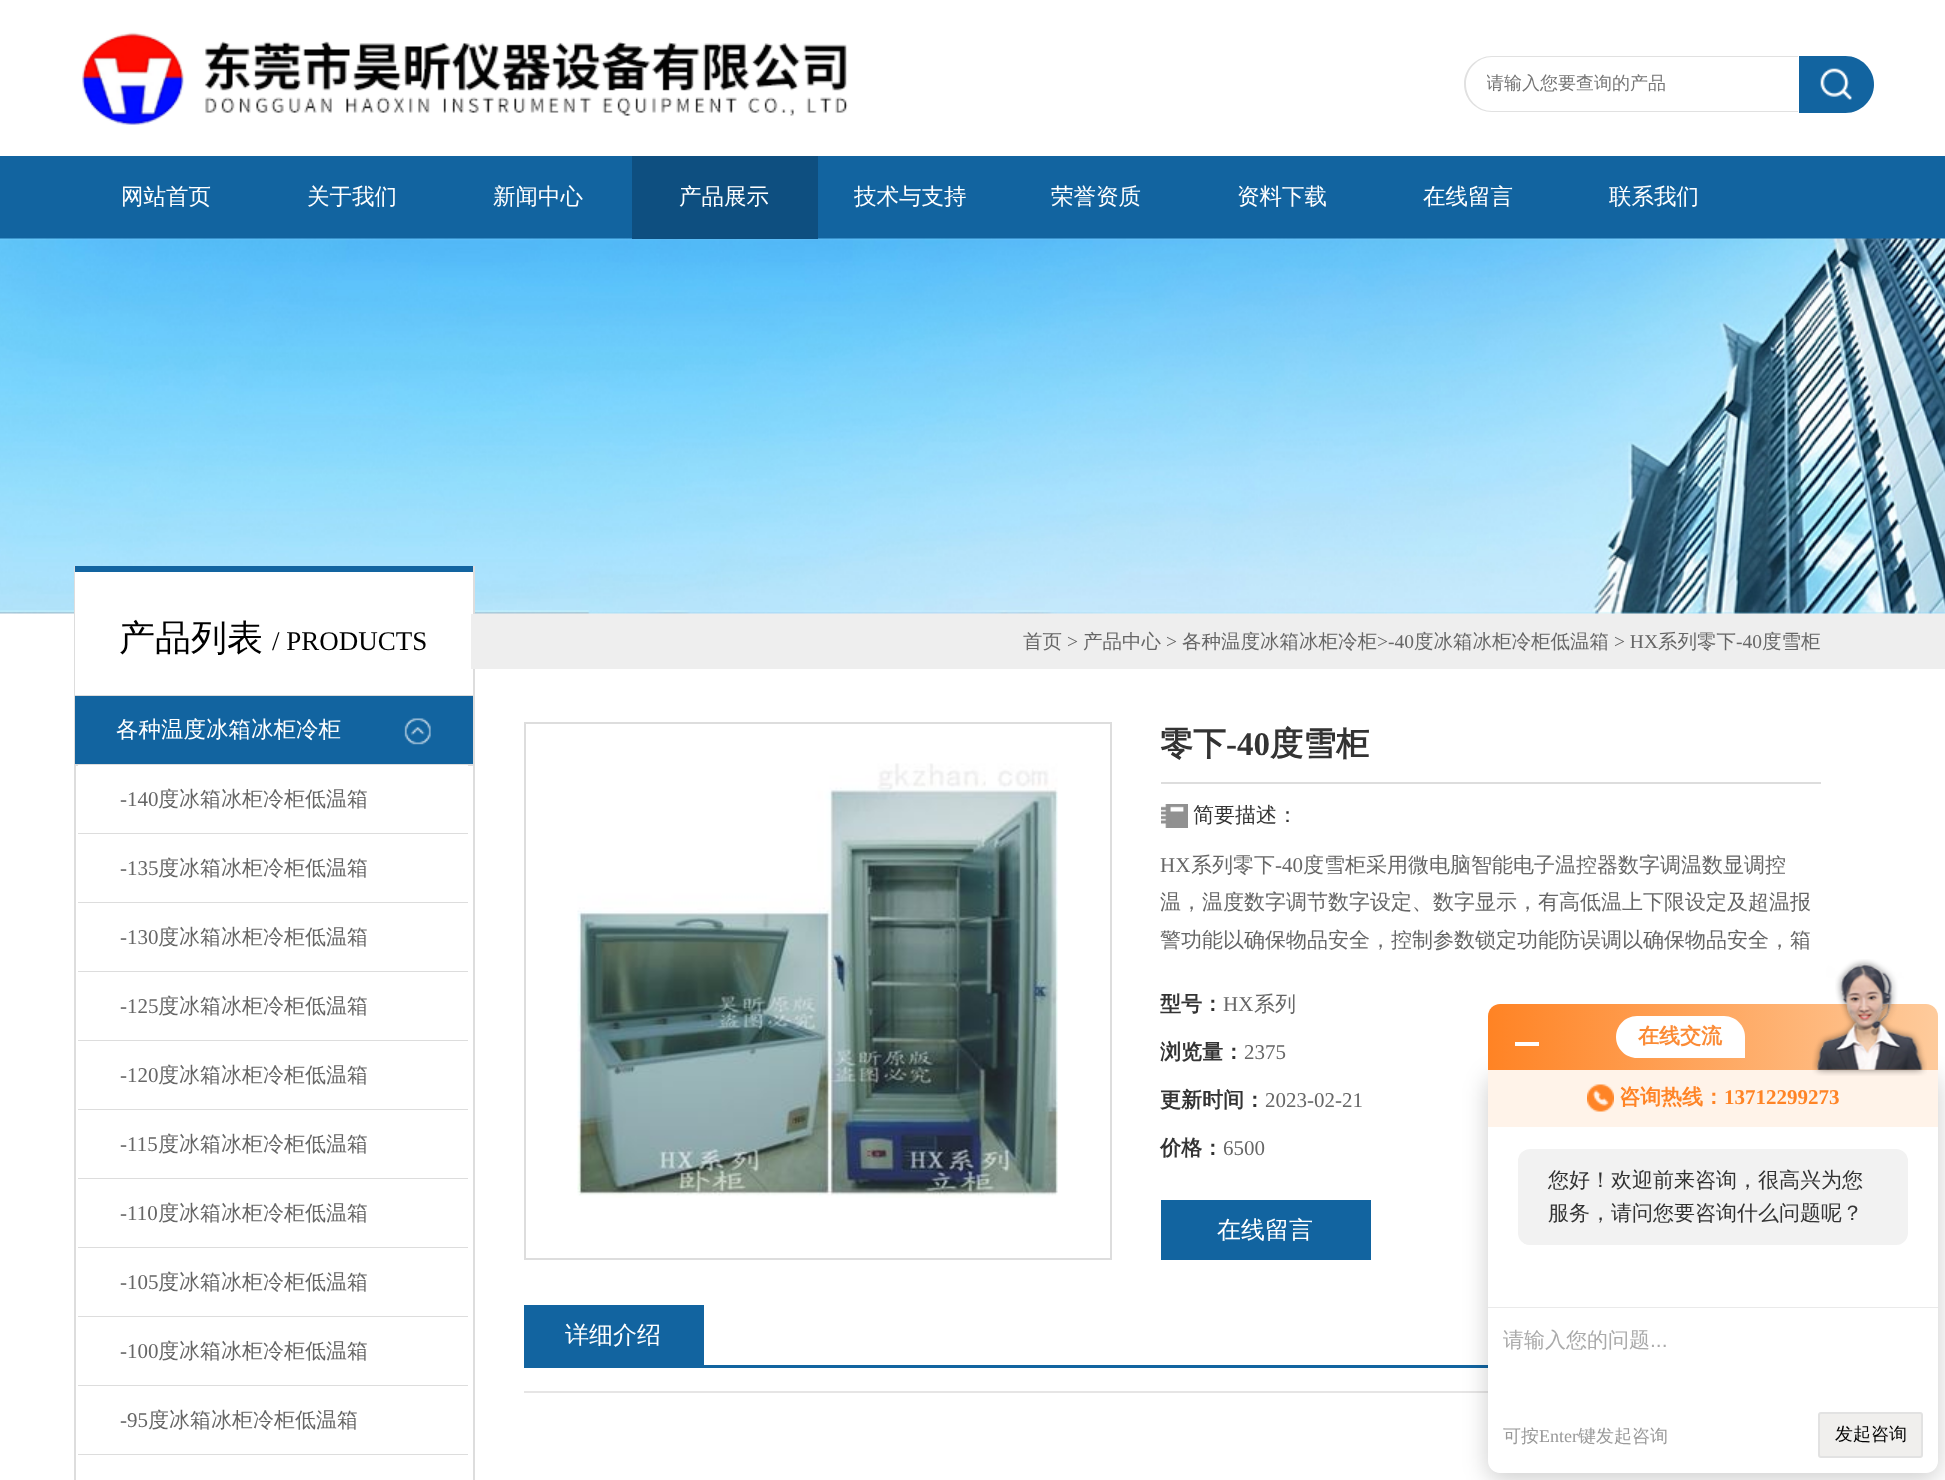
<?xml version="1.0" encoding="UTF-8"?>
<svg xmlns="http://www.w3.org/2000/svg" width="1945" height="1480">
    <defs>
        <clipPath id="clip1"><rect x="1487" y="72" width="312" height="26"/></clipPath>
        <filter id="blur1" x="-50%" y="-200%" width="200%" height="500%"><feGaussianBlur stdDeviation="12"/></filter>
        <linearGradient id="g1" gradientUnits="userSpaceOnUse" x1="1488" y1="1037" x2="1938" y2="1037"><stop offset="0" stop-color="#FF8324"/><stop offset="1" stop-color="#FECB9C"/></linearGradient>
    </defs>
    <rect width="100%" height="100%" fill="#FFFFFF"/>
    <image x="475" y="613" width="1470" height="56" href="img_01.png"/>
    <image x="82" y="32" width="766" height="93" href="img_02.png"/>
    <path d="M 1492 56 H 1798 V 112 H 1492 C 1477 112 1464 100 1464 84 C 1464 68 1477 56 1492 56 Z M 1492 57 H 1798 V 111 H 1492 C 1478 111 1466 99 1466 84 C 1466 69 1478 57 1492 57 Z" fill="#E1E1E1" fill-rule="evenodd"/>
    <g clip-path="url(#clip1)">
        <text x="1486" y="89" font-family="WenQuanYi Zen Hei" font-size="18" font-weight="500" fill="#757575">请输入您要查询的产品</text>
    </g>
    <path d="M 1799 56 H 1845.5 C 1861 56 1874 69 1874 84.5 C 1874 100 1861 113 1845.5 113 H 1799 Z" fill="#1264A0"/>
    <image x="1820" y="68" width="32" height="32" href="img_03.png"/>
    <rect x="0" y="156" width="1945" height="83" fill="#1264A0"/>
    <text x="121" y="204" font-family="WenQuanYi Zen Hei" font-size="22.5" font-weight="500" fill="#FFFFFF">网站首页</text>
    <text x="307" y="204" font-family="WenQuanYi Zen Hei" font-size="22.5" font-weight="500" fill="#FFFFFF">关于我们</text>
    <text x="493" y="204" font-family="WenQuanYi Zen Hei" font-size="22.5" font-weight="500" fill="#FFFFFF">新闻中心</text>
    <image x="0" y="238" width="1945" height="376" href="img_04.png"/>
    <rect x="632" y="156" width="186" height="83" fill="#0E4F80"/>
    <text x="679" y="204" font-family="WenQuanYi Zen Hei" font-size="22.5" font-weight="500" fill="#FFFFFF">产品展示</text>
    <text x="854" y="204" font-family="WenQuanYi Zen Hei" font-size="22.5" font-weight="500" fill="#FFFFFF">技术与支持</text>
    <text x="1051" y="204" font-family="WenQuanYi Zen Hei" font-size="22.5" font-weight="500" fill="#FFFFFF">荣誉资质</text>
    <text x="1237" y="204" font-family="WenQuanYi Zen Hei" font-size="22.5" font-weight="500" fill="#FFFFFF">资料下载</text>
    <text x="1423" y="204" font-family="WenQuanYi Zen Hei" font-size="22.5" font-weight="500" fill="#FFFFFF">在线留言</text>
    <text x="1609" y="204" font-family="WenQuanYi Zen Hei" font-size="22.5" font-weight="500" fill="#FFFFFF">联系我们</text>
    <rect x="473" y="566" width="2" height="914" fill="#DDDDDD"/>
    <rect x="74" y="566" width="2" height="914" fill="#DDDDDD"/>
    <rect x="75" y="572" width="398" height="123" fill="#FFFFFF"/>
    <rect x="75" y="566" width="398" height="6" fill="#1264A0"/>
    <rect x="75" y="695" width="398" height="1" fill="#DDDDDD"/>
    <text x="119" y="650" font-family="WenQuanYi Zen Hei" font-size="36" font-weight="500" fill="#000000">产品列表</text>
    <text x="272" y="650" font-family="Liberation Serif" font-size="27" fill="#000000">/ PRODUCTS</text>
    <rect x="75" y="696" width="398" height="68" fill="#1264A0"/>
    <image x="404" y="718" width="27" height="27" href="img_05.png"/>
    <rect x="75" y="764" width="398" height="2" fill="#DDDDDD"/>
    <text x="116" y="737" font-family="WenQuanYi Zen Hei" font-size="22.5" font-weight="500" fill="#FFFFFF">各种温度冰箱冰柜冷柜</text>
    <rect x="78" y="765" width="390" height="1" fill="#FFFFFF"/>
    <rect x="78" y="833" width="390" height="1" fill="#DDDDDD"/>
    <text x="120" y="806" font-family="Liberation Serif" font-size="21" fill="#666666">-140</text>
    <text x="158" y="806" font-family="WenQuanYi Zen Hei" font-size="21" font-weight="500" fill="#666666">度冰箱冰柜冷柜低温箱</text>
    <rect x="78" y="902" width="390" height="1" fill="#DDDDDD"/>
    <text x="120" y="875" font-family="Liberation Serif" font-size="21" fill="#666666">-135</text>
    <text x="158" y="875" font-family="WenQuanYi Zen Hei" font-size="21" font-weight="500" fill="#666666">度冰箱冰柜冷柜低温箱</text>
    <rect x="78" y="971" width="390" height="1" fill="#DDDDDD"/>
    <text x="120" y="944" font-family="Liberation Serif" font-size="21" fill="#666666">-130</text>
    <text x="158" y="944" font-family="WenQuanYi Zen Hei" font-size="21" font-weight="500" fill="#666666">度冰箱冰柜冷柜低温箱</text>
    <rect x="78" y="1040" width="390" height="1" fill="#DDDDDD"/>
    <text x="120" y="1013" font-family="Liberation Serif" font-size="21" fill="#666666">-125</text>
    <text x="158" y="1013" font-family="WenQuanYi Zen Hei" font-size="21" font-weight="500" fill="#666666">度冰箱冰柜冷柜低温箱</text>
    <rect x="78" y="1109" width="390" height="1" fill="#DDDDDD"/>
    <text x="120" y="1082" font-family="Liberation Serif" font-size="21" fill="#666666">-120</text>
    <text x="158" y="1082" font-family="WenQuanYi Zen Hei" font-size="21" font-weight="500" fill="#666666">度冰箱冰柜冷柜低温箱</text>
    <rect x="78" y="1178" width="390" height="1" fill="#DDDDDD"/>
    <text x="120" y="1151" font-family="Liberation Serif" font-size="21" fill="#666666">-115</text>
    <text x="158" y="1151" font-family="WenQuanYi Zen Hei" font-size="21" font-weight="500" fill="#666666">度冰箱冰柜冷柜低温箱</text>
    <rect x="78" y="1247" width="390" height="1" fill="#DDDDDD"/>
    <text x="120" y="1220" font-family="Liberation Serif" font-size="21" fill="#666666">-110</text>
    <text x="158" y="1220" font-family="WenQuanYi Zen Hei" font-size="21" font-weight="500" fill="#666666">度冰箱冰柜冷柜低温箱</text>
    <rect x="78" y="1316" width="390" height="1" fill="#DDDDDD"/>
    <text x="120" y="1289" font-family="Liberation Serif" font-size="21" fill="#666666">-105</text>
    <text x="158" y="1289" font-family="WenQuanYi Zen Hei" font-size="21" font-weight="500" fill="#666666">度冰箱冰柜冷柜低温箱</text>
    <rect x="78" y="1385" width="390" height="1" fill="#DDDDDD"/>
    <text x="120" y="1358" font-family="Liberation Serif" font-size="21" fill="#666666">-100</text>
    <text x="158" y="1358" font-family="WenQuanYi Zen Hei" font-size="21" font-weight="500" fill="#666666">度冰箱冰柜冷柜低温箱</text>
    <rect x="78" y="1454" width="390" height="1" fill="#DDDDDD"/>
    <text x="120" y="1427" font-family="Liberation Serif" font-size="21" fill="#666666">-95</text>
    <text x="148" y="1427" font-family="WenQuanYi Zen Hei" font-size="21" font-weight="500" fill="#666666">度冰箱冰柜冷柜低温箱</text>
    <rect x="471" y="614" width="4" height="55" fill="#EEEEEE"/>
    <text x="1023" y="648" font-family="WenQuanYi Zen Hei" font-size="19.5" font-weight="500" fill="#666666">首页</text>
    <text x="1067" y="648" font-family="Liberation Serif" font-size="19.5" fill="#666666">&gt;</text>
    <text x="1083" y="648" font-family="WenQuanYi Zen Hei" font-size="19.5" font-weight="500" fill="#666666">产品中心</text>
    <text x="1166" y="648" font-family="Liberation Serif" font-size="19.5" fill="#666666">&gt;</text>
    <text x="1182" y="648" font-family="WenQuanYi Zen Hei" font-size="19.5" font-weight="500" fill="#666666">各种温度冰箱冰柜冷柜</text>
    <text x="1377" y="648" font-family="Liberation Serif" font-size="19.5" fill="#666666">&gt;</text>
    <text x="1388" y="648" font-family="Liberation Serif" font-size="19.5" fill="#666666">-40</text>
    <text x="1414" y="648" font-family="WenQuanYi Zen Hei" font-size="19.5" font-weight="500" fill="#666666">度冰箱冰柜冷柜低温箱</text>
    <text x="1614" y="648" font-family="Liberation Serif" font-size="19.5" fill="#666666">&gt; HX</text>
    <text x="1658" y="648" font-family="WenQuanYi Zen Hei" font-size="19.5" font-weight="500" fill="#666666">系列零下</text>
    <text x="1736" y="648" font-family="Liberation Serif" font-size="19.5" fill="#666666">-40</text>
    <text x="1762" y="648" font-family="WenQuanYi Zen Hei" font-size="19.5" font-weight="500" fill="#666666">度雪柜</text>
    <rect x="525" y="723" width="586" height="536" fill="none" stroke="#DDDDDD" stroke-width="2"/>
    <image x="577" y="763" width="481" height="435" href="img_06.png"/>
    <rect x="1161" y="782" width="660" height="2" fill="#DDDDDD"/>
    <text x="1160" y="755" font-family="WenQuanYi Zen Hei" font-size="33" font-weight="700" fill="#333333">零下</text>
    <text x="1226" y="755" font-family="Liberation Serif" font-size="33" font-weight="700" fill="#333333">-40</text>
    <text x="1270" y="755" font-family="WenQuanYi Zen Hei" font-size="33" font-weight="700" fill="#333333">度雪柜</text>
    <image x="1161" y="804" width="27" height="24" href="img_07.png"/>
    <text x="1193" y="822" font-family="WenQuanYi Zen Hei" font-size="21" font-weight="500" fill="#333333">简要描述：</text>
    <text x="1160" y="872" font-family="Liberation Serif" font-size="21" fill="#666666">HX</text>
    <text x="1191" y="872" font-family="WenQuanYi Zen Hei" font-size="21" font-weight="500" fill="#666666">系列零下</text>
    <text x="1275" y="872" font-family="Liberation Serif" font-size="21" fill="#666666">-40</text>
    <text x="1303" y="872" font-family="WenQuanYi Zen Hei" font-size="21" font-weight="500" fill="#666666">度雪柜采用微电脑智能电子温控器数字调温数显调控</text>
    <text font-family="WenQuanYi Zen Hei" font-size="21" font-weight="500" fill="#666666">
        <tspan x="1160" y="909">温，温度数字调节数字设定、数字显示，有高低温上下限设定及超温报</tspan>
        <tspan x="1160" y="947">警功能以确保物品安全，控制参数锁定功能防误调以确保物品安全，箱</tspan>
    </text>
    <text x="1160" y="1011" font-family="WenQuanYi Zen Hei" font-size="21" font-weight="700" fill="#333333">型号：</text>
    <text x="1223" y="1011" font-family="Liberation Serif" font-size="21" fill="#666666">HX</text>
    <text x="1254" y="1011" font-family="WenQuanYi Zen Hei" font-size="21" font-weight="500" fill="#666666">系列</text>
    <text x="1160" y="1059" font-family="WenQuanYi Zen Hei" font-size="21" font-weight="700" fill="#333333">浏览量：</text>
    <text x="1244" y="1059" font-family="Liberation Serif" font-size="21" fill="#666666">2375</text>
    <text x="1160" y="1107" font-family="WenQuanYi Zen Hei" font-size="21" font-weight="700" fill="#333333">更新时间：</text>
    <text x="1265" y="1107" font-family="Liberation Serif" font-size="21" fill="#666666">2023-02-21</text>
    <text x="1160" y="1155" font-family="WenQuanYi Zen Hei" font-size="21" font-weight="700" fill="#333333">价格：</text>
    <text x="1223" y="1155" font-family="Liberation Serif" font-size="21" fill="#666666">6500</text>
    <rect x="1161" y="1200" width="210" height="60" fill="#1264A0"/>
    <text x="1217" y="1238" font-family="WenQuanYi Zen Hei" font-size="24" font-weight="500" fill="#FFFFFF">在线留言</text>
    <rect x="524" y="1365" width="964" height="3" fill="#1264A0"/>
    <rect x="524" y="1305" width="180" height="60" fill="#1264A0"/>
    <text x="565" y="1343" font-family="WenQuanYi Zen Hei" font-size="24" font-weight="500" fill="#FFFFFF">详细介绍</text>
    <rect x="524" y="1391" width="964" height="2" fill="#E6E5E5"/>
    <rect x="1488" y="1076" width="450" height="403" rx="12" fill="#000000" fill-opacity="0.2" filter="url(#blur1)"/>
    <path d="M 1500 1004 H 1926 C 1932.5 1004 1938 1009.5 1938 1016 V 1070 H 1488 V 1016 C 1488 1009.5 1493.5 1004 1500 1004 Z" fill="url(#g1)"/>
    <rect x="1515" y="1042" width="24" height="4" fill="#FFFFFF"/>
    <path d="M 1637 1016 H 1724 C 1735.5 1016 1745 1025.5 1745 1037 V 1058 H 1637 C 1625.5 1058 1616 1048.5 1616 1037 C 1616 1025.5 1625.5 1016 1637 1016 Z" fill="#FFFFFF"/>
    <text x="1638" y="1043" font-family="WenQuanYi Zen Hei" font-size="21" font-weight="700" fill="#FB8B36">在线交流</text>
    <path d="M 1488 1070 H 1938 V 1461 C 1938 1467.5 1932.5 1473 1926 1473 H 1500 C 1493.5 1473 1488 1467.5 1488 1461 Z" fill="#FFFFFF"/>
    <rect x="1488" y="1070" width="450" height="57" fill="#FFF3E9"/>
    <image x="1812" y="959" width="115" height="117" href="img_08.png"/>
    <image x="1587" y="1084" width="27" height="28" href="img_09.png"/>
    <text x="1619" y="1104" font-family="WenQuanYi Zen Hei" font-size="21" font-weight="700" fill="#FF8426">咨询热线：</text>
    <text x="1724" y="1104" font-family="Liberation Serif" font-size="21" font-weight="700" fill="#FF8426">13712299273</text>
    <rect x="1518" y="1149" width="390" height="96" rx="12" fill="#F2F2F2"/>
    <text font-family="WenQuanYi Zen Hei" font-size="21" font-weight="500" fill="#333333">
        <tspan x="1548" y="1187">您好！欢迎前来咨询，很高兴为您</tspan>
        <tspan x="1548" y="1220">服务，请问您要咨询什么问题呢？</tspan>
    </text>
    <rect x="1488" y="1307" width="450" height="1" fill="#EAEAEA"/>
    <text x="1503" y="1347" font-family="WenQuanYi Zen Hei" font-size="21" font-weight="500" fill="#AAAAAA">请输入您的问题</text>
    <text x="1650" y="1347" font-family="Liberation Sans" font-size="21" fill="#AAAAAA">...</text>
    <text x="1503" y="1442" font-family="WenQuanYi Zen Hei" font-size="18" font-weight="500" fill="#999999">可按</text>
    <text x="1539" y="1442" font-family="Liberation Serif" font-size="18" fill="#999999">Enter</text>
    <text x="1578" y="1442" font-family="WenQuanYi Zen Hei" font-size="18" font-weight="500" fill="#999999">键发起咨询</text>
    <rect x="1819" y="1413" width="103" height="44" rx="2" fill="#F0EFED" stroke="#E2E2E2" stroke-width="2"/>
    <text x="1835" y="1440" font-family="WenQuanYi Zen Hei" font-size="18" font-weight="500" fill="#000000">发起咨询</text>
</svg>
